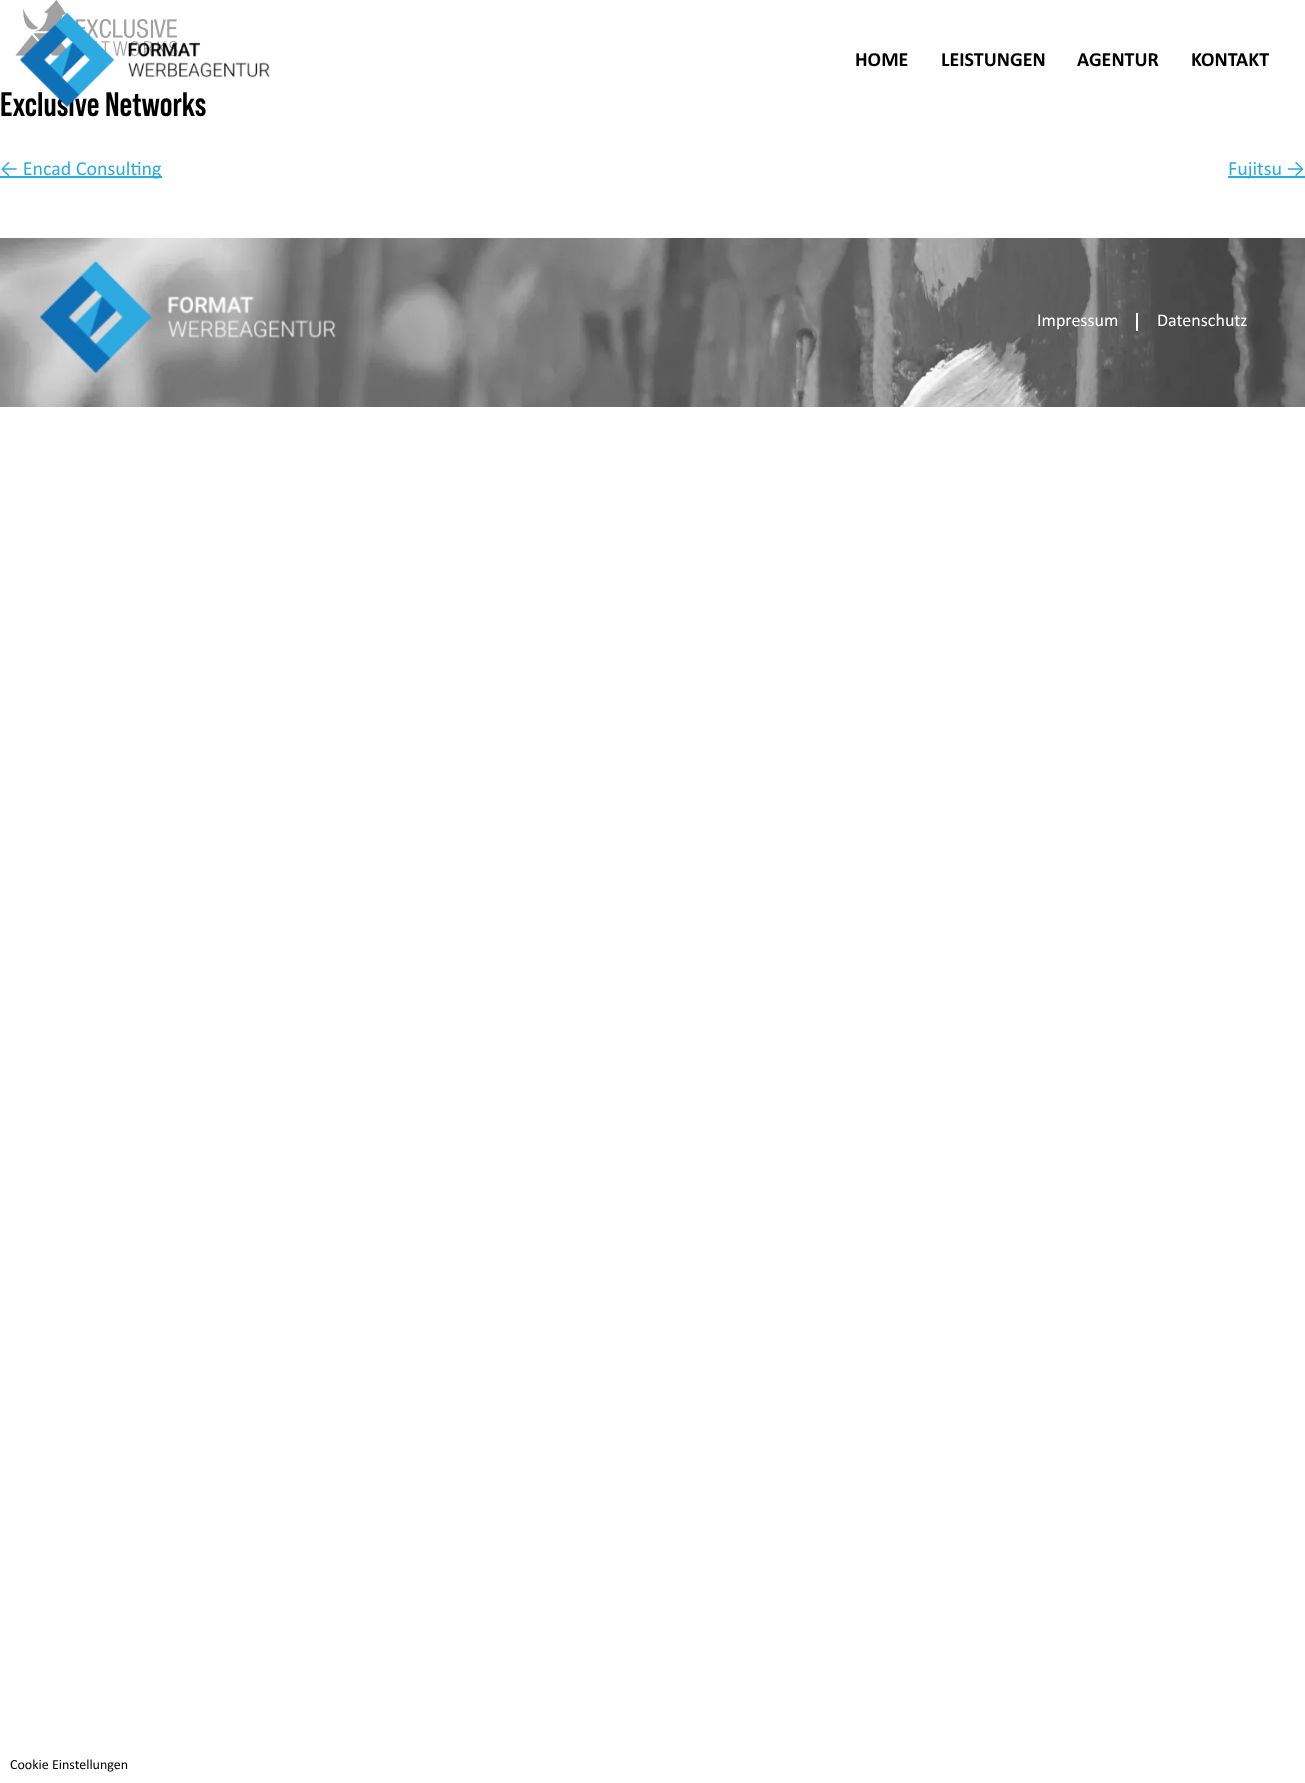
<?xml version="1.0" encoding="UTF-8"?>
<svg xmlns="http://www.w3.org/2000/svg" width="1305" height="1783">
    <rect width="100%" height="100%" fill="#FFFFFF"/>
    <image x="15" y="0" width="163" height="56" href="img_02.png"/>
    <text x="0" y="116" font-family="Bebas Neue" font-size="34" font-weight="700" fill="#000000">Exclusive Networks</text>
    <image x="20" y="12" width="250" height="95" href="img_01.png"/>
    <text x="855" y="66" font-family="Calibri" font-size="20" font-weight="700" fill="#000000">HOME</text>
    <text x="941" y="66" font-family="Calibri" font-size="20" font-weight="700" fill="#000000">LEISTUNGEN</text>
    <text x="1077" y="66" font-family="Calibri" font-size="20" font-weight="700" fill="#000000">AGENTUR</text>
    <text x="1191" y="66" font-family="Calibri" font-size="20" font-weight="700" fill="#000000">KONTAKT</text>
    <rect x="0" y="176" width="162" height="2" fill="#2DAAE1"/>
    <text x="0" y="175" font-family="Calibri" font-size="20" fill="#2DAAE1">← Encad Consulting</text>
    <rect x="1228" y="176" width="77" height="2" fill="#2DAAE1"/>
    <text x="1228" y="175" font-family="Calibri" font-size="20" fill="#2DAAE1">Fujitsu →</text>
    <image x="0" y="238" width="1305" height="169" href="img_03.png"/>
    <image x="40" y="260" width="296" height="113" href="img_04.png"/>
    <rect x="1136" y="313" width="2" height="18" fill="#FFFFFF"/>
    <text x="1037" y="326" font-family="Calibri" font-size="18" fill="#FFFFFF">Impressum</text>
    <text x="1157" y="326" font-family="Calibri" font-size="18" fill="#FFFFFF">Datenschutz</text>
    <text x="10" y="1769" font-family="Calibri" font-size="14" fill="#000000">Cookie Einstellungen</text>
</svg>
